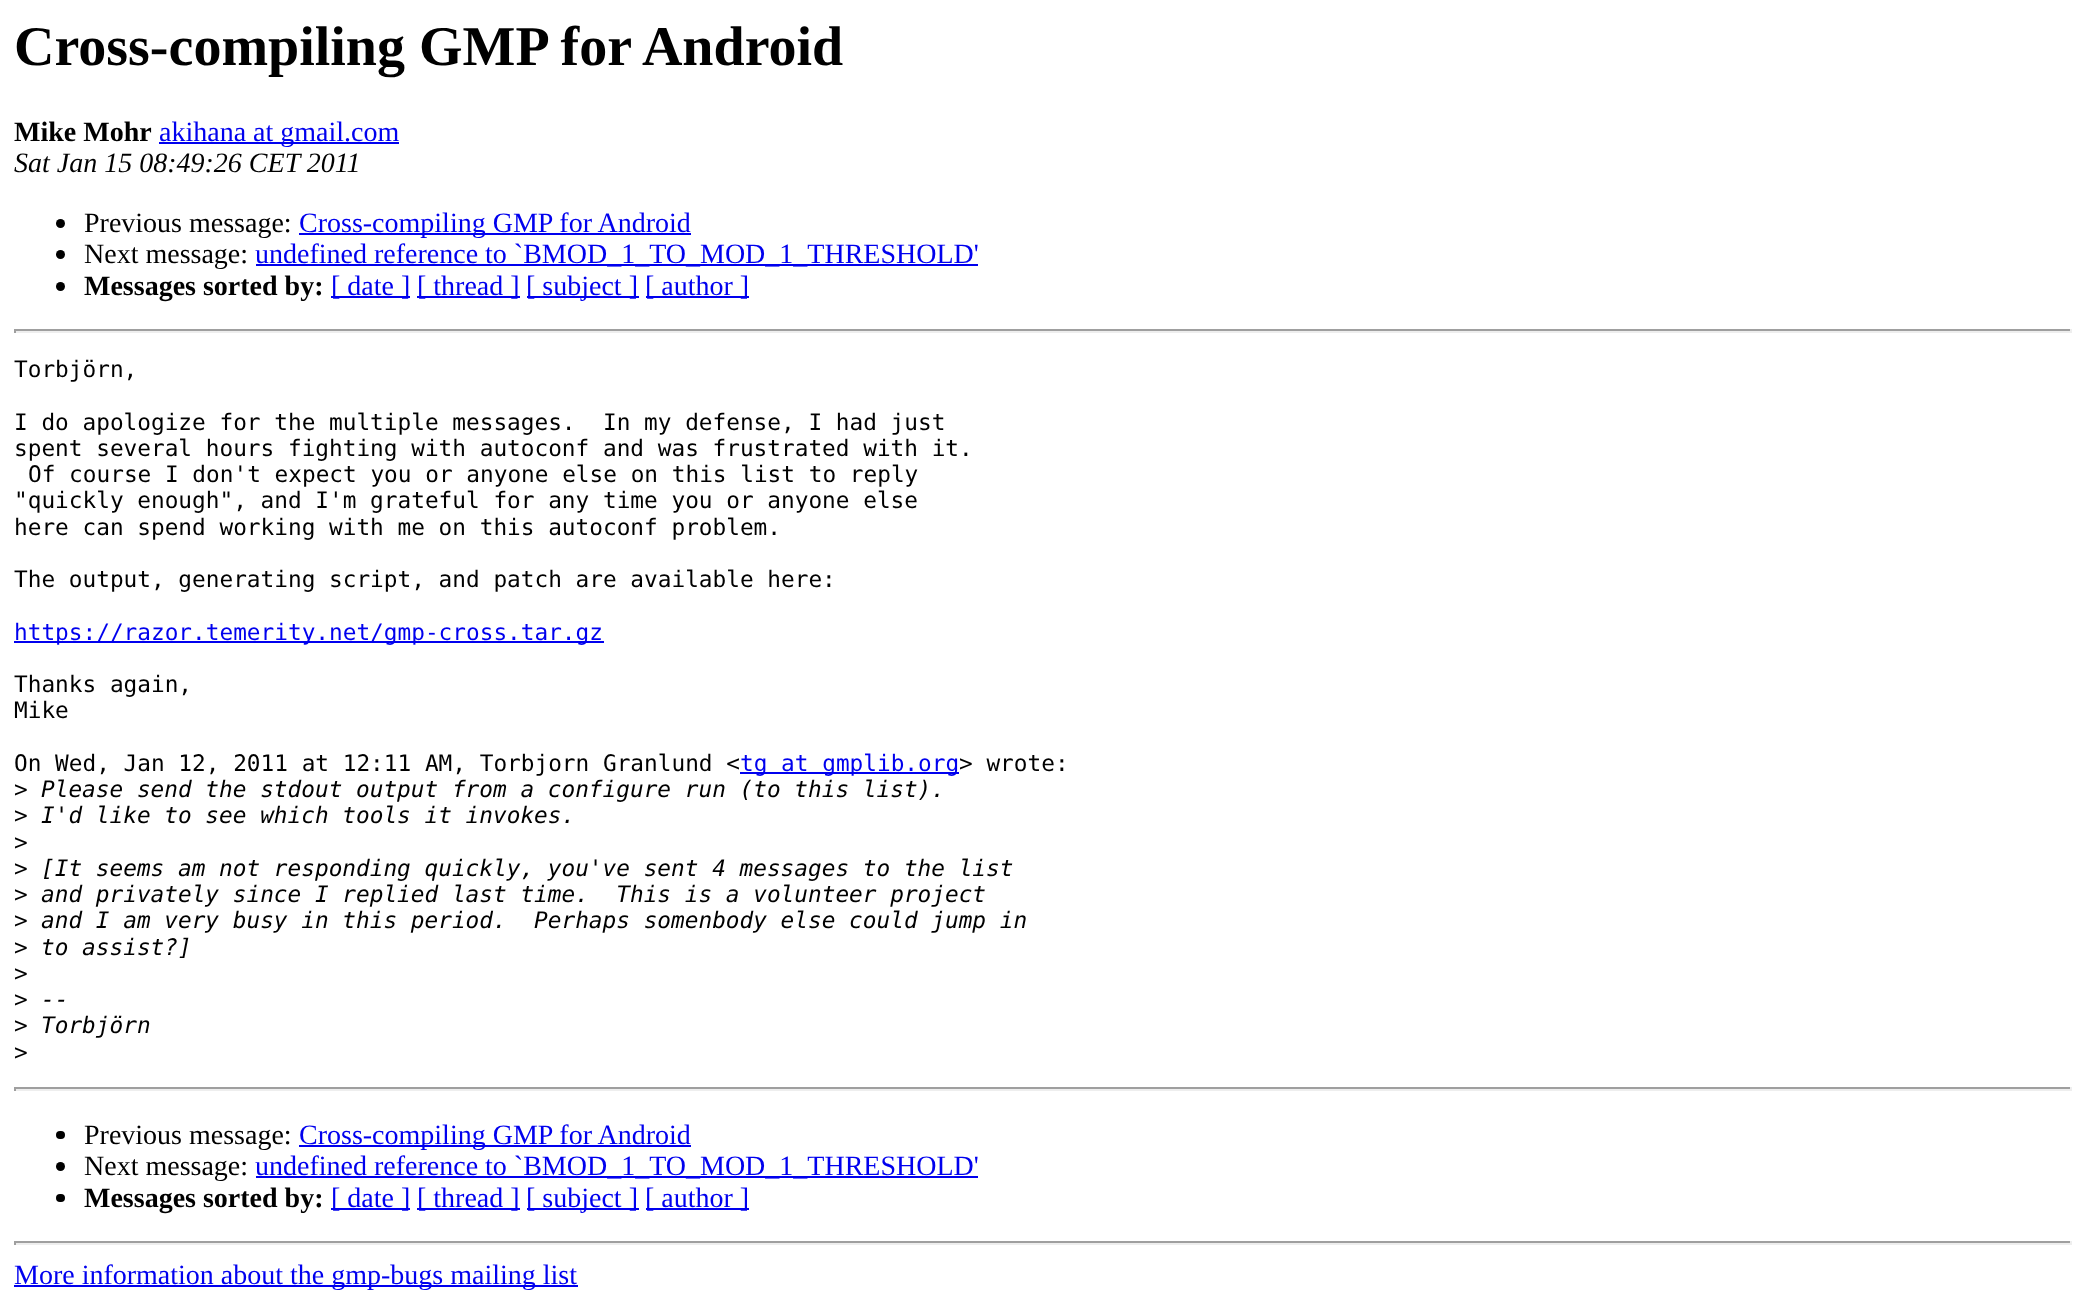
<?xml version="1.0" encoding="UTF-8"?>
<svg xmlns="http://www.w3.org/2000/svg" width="2086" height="1299">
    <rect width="100%" height="100%" fill="#FFFFFF"/>
    <text x="14" y="65" font-family="Liberation Serif" font-size="56" font-weight="700" fill="#000000">Cross-compiling GMP for Android</text>
    <text x="14" y="141" font-family="Liberation Serif" font-size="28" font-weight="700" fill="#000000">Mike Mohr</text>
    <rect x="159" y="142" width="240" height="2" fill="#0000EE"/>
    <text x="159" y="141" font-family="Liberation Serif" font-size="28" fill="#0000EE">akihana at gmail.com</text>
    <text x="14" y="172" font-family="Liberation Serif" font-size="28" font-style="italic" fill="#000000">Sat Jan 15 08:49:26 CET 2011</text>
    <circle cx="60.5" cy="223.5" r="4.5" fill="#000000"/>
    <text x="84" y="232" font-family="Liberation Serif" font-size="28" fill="#000000">Previous message:</text>
    <rect x="299" y="233" width="392" height="2" fill="#0000EE"/>
    <text x="299" y="232" font-family="Liberation Serif" font-size="28" fill="#0000EE">Cross-compiling GMP for Android</text>
    <circle cx="60.5" cy="254.5" r="4.5" fill="#000000"/>
    <text x="84" y="263" font-family="Liberation Serif" font-size="28" fill="#000000">Next message:</text>
    <rect x="256" y="264" width="722" height="2" fill="#0000EE"/>
    <text x="255" y="263" font-family="Liberation Serif" font-size="28" fill="#0000EE">undefined reference to `BMOD_1_TO_MOD_1_THRESHOLD'</text>
    <circle cx="60.5" cy="286.5" r="4.5" fill="#000000"/>
    <text x="84" y="295" font-family="Liberation Serif" font-size="28" font-weight="700" fill="#000000">Messages sorted by:</text>
    <rect x="331" y="296" width="79" height="2" fill="#0000EE"/>
    <text x="331" y="295" font-family="Liberation Serif" font-size="28" fill="#0000EE">[ date ]</text>
    <rect x="417" y="296" width="103" height="2" fill="#0000EE"/>
    <text x="417" y="295" font-family="Liberation Serif" font-size="28" fill="#0000EE">[ thread ]</text>
    <rect x="527" y="296" width="112" height="2" fill="#0000EE"/>
    <text x="526" y="295" font-family="Liberation Serif" font-size="28" fill="#0000EE">[ subject ]</text>
    <rect x="646" y="296" width="103" height="2" fill="#0000EE"/>
    <text x="645" y="295" font-family="Liberation Serif" font-size="28" fill="#0000EE">[ author ]</text>
    <rect x="14" y="329" width="2058" height="2" fill="#9F9F9F"/>
    <rect x="2070" y="329" width="2" height="4" fill="#EEEEEE"/>
    <rect x="14" y="331" width="2058" height="2" fill="#EEEEEE"/>
    <rect x="14" y="329" width="2" height="4" fill="#9F9F9F"/>
    <text x="14" y="377" font-family="DejaVu Sans Mono" font-size="22.75" fill="#000000">Torbjörn,</text>
    <text font-family="DejaVu Sans Mono" font-size="22.75" fill="#000000" xml:space="preserve"><tspan x="14" y="430">I do apologize for the multiple messages.  In my defense, I had just</tspan><tspan x="14" y="456">spent several hours fighting with autoconf and was frustrated with it.</tspan></text>
    <text x="28" y="482" font-family="DejaVu Sans Mono" font-size="22.75" fill="#000000">Of course I don't expect you or anyone else on this list to reply</text>
    <text font-family="DejaVu Sans Mono" font-size="22.75" fill="#000000">
        <tspan x="14" y="508">"quickly enough", and I'm grateful for any time you or anyone else</tspan>
        <tspan x="14" y="535">here can spend working with me on this autoconf problem.</tspan>
    </text>
    <text x="14" y="587" font-family="DejaVu Sans Mono" font-size="22.75" fill="#000000">The output, generating script, and patch are available here:</text>
    <rect x="14" y="641" width="590" height="2" fill="#0000EE"/>
    <text x="14" y="640" font-family="DejaVu Sans Mono" font-size="22.75" fill="#0000EE">https://razor.temerity.net/gmp-cross.tar.gz</text>
    <text font-family="DejaVu Sans Mono" font-size="22.75" fill="#000000">
        <tspan x="14" y="692">Thanks again,</tspan>
        <tspan x="14" y="718">Mike</tspan>
    </text>
    <text x="14" y="771" font-family="DejaVu Sans Mono" font-size="22.75" fill="#000000">On Wed, Jan 12, 2011 at 12:11 AM, Torbjorn Granlund &lt;</text>
    <rect x="740" y="772" width="219" height="2" fill="#0000EE"/>
    <text x="740" y="771" font-family="DejaVu Sans Mono" font-size="22.75" fill="#0000EE">tg at gmplib.org</text>
    <text x="959" y="771" font-family="DejaVu Sans Mono" font-size="22.75" fill="#000000">&gt; wrote:</text>
    <text x="14" y="797" font-family="DejaVu Sans Mono" font-size="22.75" fill="#000000">&gt;</text>
    <text x="41" y="797" font-family="DejaVu Sans Mono" font-size="22.75" font-style="italic" fill="#000000">Please send the stdout output from a configure run (to this list).</text>
    <text x="14" y="823" font-family="DejaVu Sans Mono" font-size="22.75" fill="#000000">&gt;</text>
    <text x="41" y="823" font-family="DejaVu Sans Mono" font-size="22.75" font-style="italic" fill="#000000">I'd like to see which tools it invokes.</text>
    <text font-family="DejaVu Sans Mono" font-size="22.75" fill="#000000">
        <tspan x="14" y="850">&gt;</tspan>
        <tspan x="14" y="876">&gt;</tspan>
    </text>
    <text x="41" y="876" font-family="DejaVu Sans Mono" font-size="22.75" font-style="italic" fill="#000000">[It seems am not responding quickly, you've sent 4 messages to the list</text>
    <text x="14" y="902" font-family="DejaVu Sans Mono" font-size="22.75" fill="#000000">&gt;</text>
    <text x="41" y="902" font-family="DejaVu Sans Mono" font-size="22.75" font-style="italic" fill="#000000" xml:space="preserve">and privately since I replied last time.  This is a volunteer project</text>
    <text x="14" y="928" font-family="DejaVu Sans Mono" font-size="22.75" fill="#000000">&gt;</text>
    <text x="41" y="928" font-family="DejaVu Sans Mono" font-size="22.75" font-style="italic" fill="#000000" xml:space="preserve">and I am very busy in this period.  Perhaps somenbody else could jump in</text>
    <text x="14" y="955" font-family="DejaVu Sans Mono" font-size="22.75" fill="#000000">&gt;</text>
    <text x="41" y="955" font-family="DejaVu Sans Mono" font-size="22.75" font-style="italic" fill="#000000">to assist?]</text>
    <text font-family="DejaVu Sans Mono" font-size="22.75" fill="#000000">
        <tspan x="14" y="981">&gt;</tspan>
        <tspan x="14" y="1007">&gt;</tspan>
    </text>
    <text x="41" y="1007" font-family="DejaVu Sans Mono" font-size="22.75" font-style="italic" fill="#000000">--</text>
    <text x="14" y="1033" font-family="DejaVu Sans Mono" font-size="22.75" fill="#000000">&gt;</text>
    <text x="41" y="1033" font-family="DejaVu Sans Mono" font-size="22.75" font-style="italic" fill="#000000">Torbjörn</text>
    <text x="14" y="1060" font-family="DejaVu Sans Mono" font-size="22.75" fill="#000000">&gt;</text>
    <rect x="14" y="1087" width="2058" height="2" fill="#9F9F9F"/>
    <rect x="2070" y="1087" width="2" height="4" fill="#EEEEEE"/>
    <rect x="14" y="1089" width="2058" height="2" fill="#EEEEEE"/>
    <rect x="14" y="1087" width="2" height="4" fill="#9F9F9F"/>
    <rect x="56" y="1131" width="9" height="8" rx="4" fill="#000000"/>
    <text x="84" y="1144" font-family="Liberation Serif" font-size="28" fill="#000000">Previous message:</text>
    <rect x="299" y="1145" width="392" height="2" fill="#0000EE"/>
    <text x="299" y="1144" font-family="Liberation Serif" font-size="28" fill="#0000EE">Cross-compiling GMP for Android</text>
    <circle cx="60.5" cy="1166.5" r="4.5" fill="#000000"/>
    <text x="84" y="1175" font-family="Liberation Serif" font-size="28" fill="#000000">Next message:</text>
    <rect x="256" y="1176" width="722" height="2" fill="#0000EE"/>
    <text x="255" y="1175" font-family="Liberation Serif" font-size="28" fill="#0000EE">undefined reference to `BMOD_1_TO_MOD_1_THRESHOLD'</text>
    <rect x="56" y="1194" width="9" height="8" rx="4" fill="#000000"/>
    <text x="84" y="1207" font-family="Liberation Serif" font-size="28" font-weight="700" fill="#000000">Messages sorted by:</text>
    <rect x="331" y="1208" width="79" height="2" fill="#0000EE"/>
    <text x="331" y="1207" font-family="Liberation Serif" font-size="28" fill="#0000EE">[ date ]</text>
    <rect x="417" y="1208" width="103" height="2" fill="#0000EE"/>
    <text x="417" y="1207" font-family="Liberation Serif" font-size="28" fill="#0000EE">[ thread ]</text>
    <rect x="527" y="1208" width="112" height="2" fill="#0000EE"/>
    <text x="526" y="1207" font-family="Liberation Serif" font-size="28" fill="#0000EE">[ subject ]</text>
    <rect x="646" y="1208" width="103" height="2" fill="#0000EE"/>
    <text x="645" y="1207" font-family="Liberation Serif" font-size="28" fill="#0000EE">[ author ]</text>
    <rect x="14" y="1241" width="2058" height="2" fill="#9F9F9F"/>
    <rect x="2070" y="1241" width="2" height="4" fill="#EEEEEE"/>
    <rect x="14" y="1243" width="2058" height="2" fill="#EEEEEE"/>
    <rect x="14" y="1241" width="2" height="4" fill="#9F9F9F"/>
    <rect x="14" y="1285" width="564" height="2" fill="#0000EE"/>
    <text x="14" y="1284" font-family="Liberation Serif" font-size="28" fill="#0000EE">More information about the gmp-bugs mailing list</text>
</svg>
